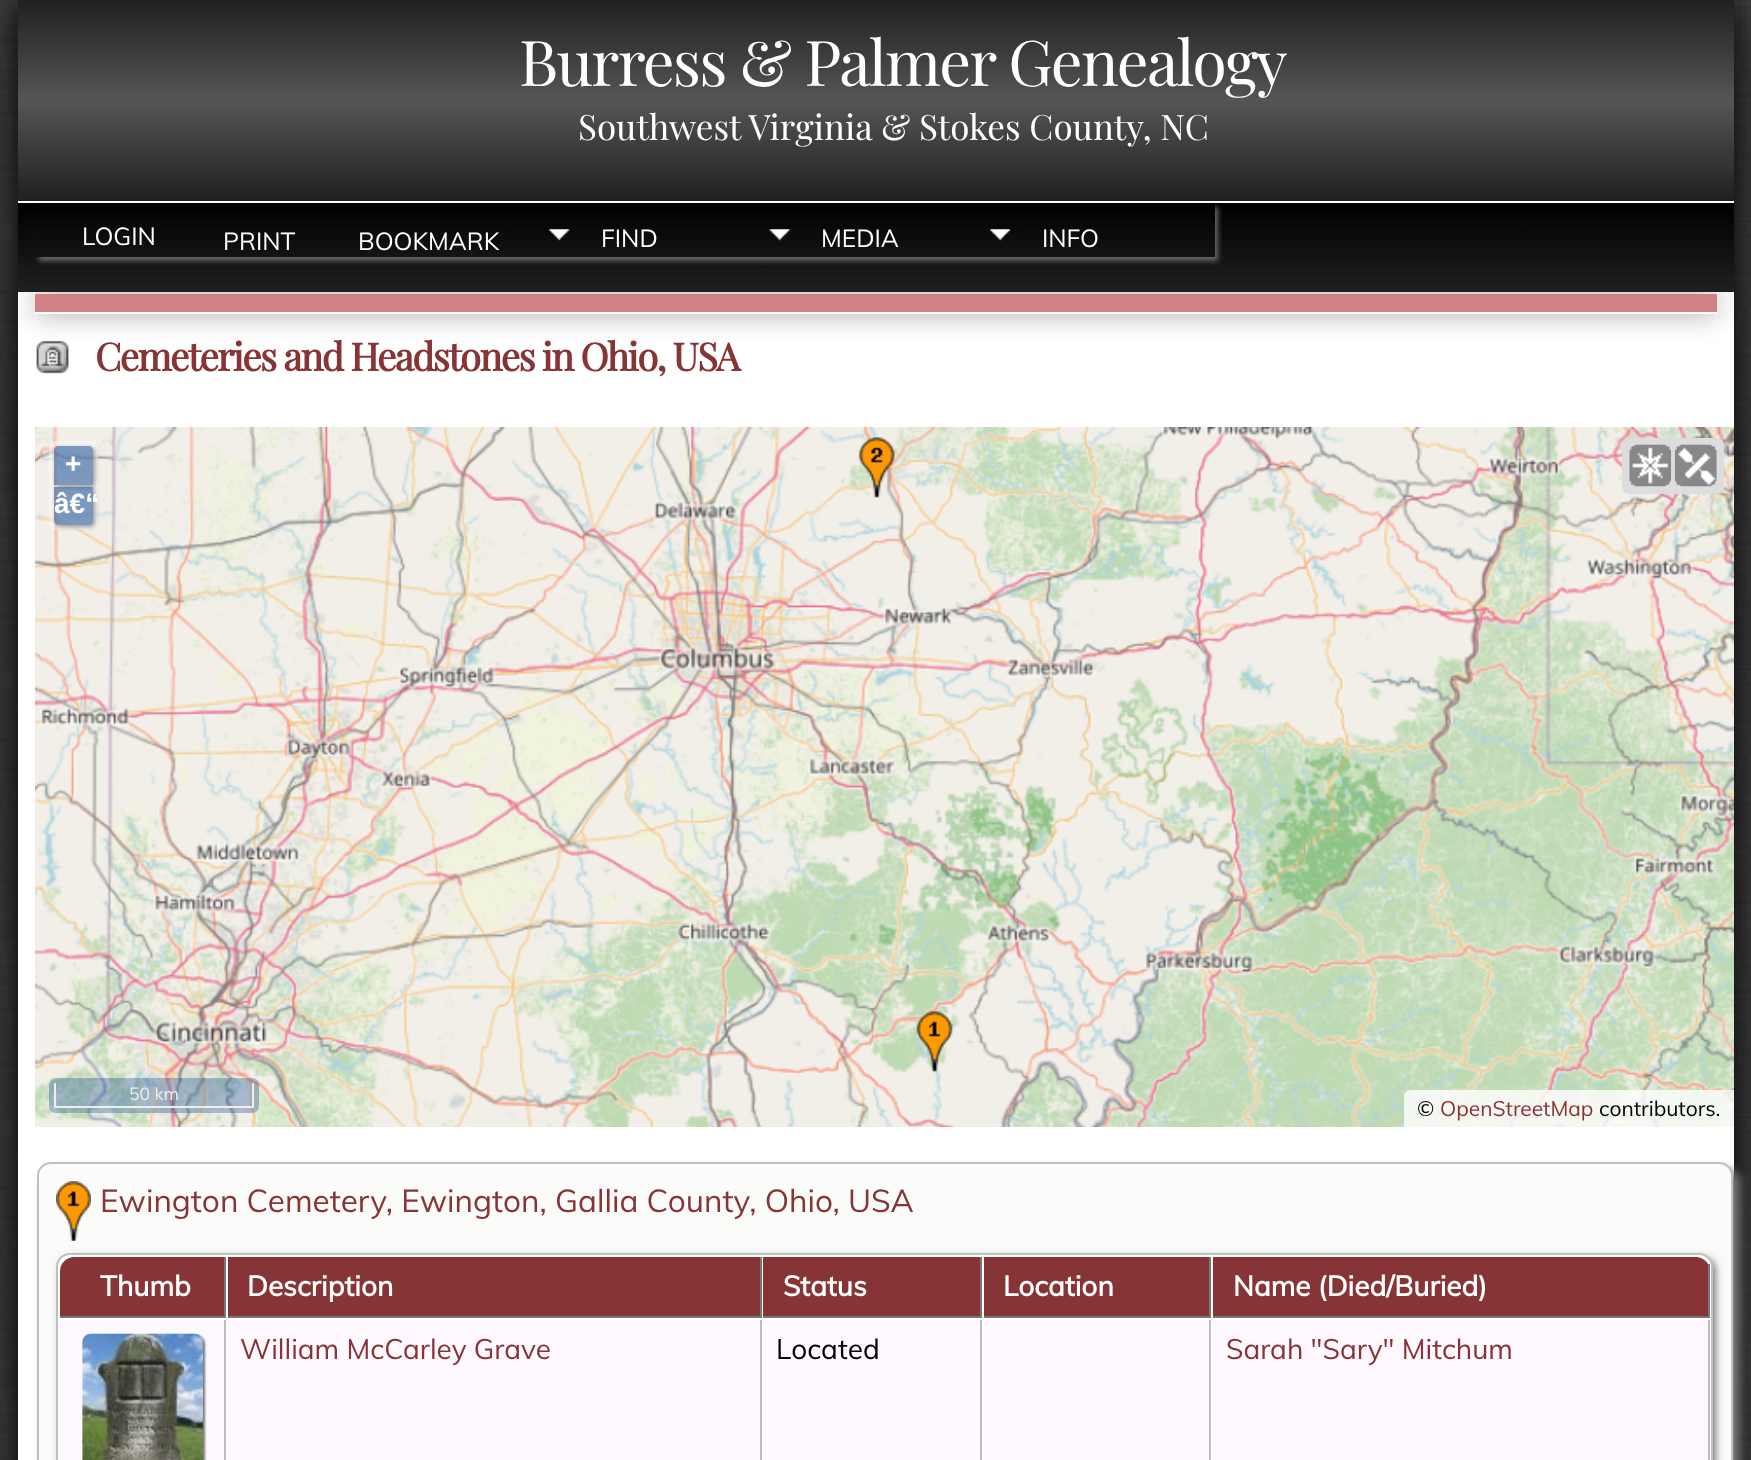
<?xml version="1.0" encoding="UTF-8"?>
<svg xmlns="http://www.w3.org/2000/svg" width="1751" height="1460">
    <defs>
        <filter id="blur1" x="-50%" y="-200%" width="200%" height="500%"><feGaussianBlur stdDeviation="17.5"/></filter>
        <linearGradient id="g1" gradientUnits="userSpaceOnUse" x1="876" y1="0" x2="876" y2="201"><stop offset="0" stop-color="#202020"/><stop offset="0.5" stop-color="#555555"/><stop offset="1" stop-color="#202020"/></linearGradient>
        <filter id="blur2" x="-50%" y="-200%" width="200%" height="500%"><feGaussianBlur stdDeviation="14"/></filter>
        <linearGradient id="g2" gradientUnits="userSpaceOnUse" x1="876" y1="203" x2="876" y2="292"><stop offset="0" stop-color="#000000"/><stop offset="1" stop-color="#202020"/></linearGradient>
        <clipPath id="clip1"><path d="M 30 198 H 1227 V 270 H 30 Z M 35 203 H 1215 V 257 H 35 Z" clip-rule="evenodd"/></clipPath>
        <filter id="blur3" x="-50%" y="-200%" width="200%" height="500%"><feGaussianBlur stdDeviation="2.5"/></filter>
        <clipPath id="clip2"><path d="M 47 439 H 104 V 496 H 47 Z M 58 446 H 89 C 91 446 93 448 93 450 V 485 H 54 V 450 C 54 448 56 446 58 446 Z" clip-rule="evenodd"/></clipPath>
        <clipPath id="clip3"><path d="M 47 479 H 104 V 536 H 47 Z M 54 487 H 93 V 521 C 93 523 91 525 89 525 H 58 C 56 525 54 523 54 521 Z" clip-rule="evenodd"/></clipPath>
        <filter id="blur4" x="-50%" y="-200%" width="200%" height="500%"><feGaussianBlur stdDeviation="5"/></filter>
        <filter id="blur5" x="-50%" y="-200%" width="200%" height="500%"><feGaussianBlur stdDeviation="4.5"/></filter>
        <filter id="blur6" x="-50%" y="-200%" width="200%" height="500%"><feGaussianBlur stdDeviation="1"/></filter>
    </defs>
    <rect width="100%" height="100%" fill="#FFFFFF"/>
    <image x="0" y="0" width="1751" height="1460" href="img_01.png"/>
    <rect x="18" y="0" width="1716" height="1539" rx="26" fill="#000000" filter="url(#blur1)"/>
    <rect x="18" y="292" width="1716" height="1168" fill="#FFFFFF"/>
    <rect x="18" y="0" width="1716" height="201" fill="url(#g1)"/>
    <text x="519" y="86" font-family="Playfair Display" font-size="63" letter-spacing="-1.75" fill="#FFFFFF">Burress &amp; Palmer Genealogy</text>
    <text x="578" y="140" font-family="Playfair Display" font-size="35" fill="#FFFFFF">Southwest Virginia &amp; Stokes County, NC</text>
    <rect x="35" y="294" width="1682" height="19" fill="#000000" fill-opacity="0.4" filter="url(#blur2)"/>
    <rect x="18" y="203" width="1716" height="89" fill="url(#g2)"/>
    <rect x="18" y="201" width="1716" height="2" fill="#FFFFFF"/>
    <g clip-path="url(#clip1)">
        <rect x="39" y="207" width="1179" height="54" fill="#666666" filter="url(#blur3)"/>
    </g>
    <text x="82" y="245" font-family="Muli" font-size="24.5" fill="#FFFFFF">LOGIN</text>
    <text x="223" y="250" font-family="Muli" font-size="24.5" fill="#FFFFFF">PRINT</text>
    <text x="358" y="250" font-family="Muli" font-size="24.5" fill="#FFFFFF">BOOKMARK</text>
    <image x="549" y="229" width="21" height="12" href="img_02.png"/>
    <text x="601" y="247" font-family="Muli" font-size="24.5" fill="#FFFFFF">FIND</text>
    <image x="769" y="229" width="21" height="12" href="img_03.png"/>
    <text x="821" y="247" font-family="Muli" font-size="24.5" fill="#FFFFFF">MEDIA</text>
    <image x="990" y="229" width="21" height="12" href="img_04.png"/>
    <text x="1042" y="247" font-family="Muli" font-size="24.5" fill="#FFFFFF">INFO</text>
    <rect x="35" y="294" width="1682" height="18" fill="#CF8183"/>
    <rect x="35" y="312" width="1682" height="2" fill="#FFFFFF"/>
    <image x="36" y="340" width="33" height="34" href="img_05.png"/>
    <text x="95" y="371" font-family="Playfair Display" font-size="38.5" font-weight="700" letter-spacing="-1.75" fill="#863435">Cemeteries and Headstones in Ohio, USA</text>
    <image x="35" y="427" width="1699" height="700" href="img_08.png"/>
    <rect x="1622" y="438" width="102" height="56" rx="7" fill="#DDDDDD"/>
    <image x="1629" y="444" width="43" height="43" href="img_06.png"/>
    <image x="1674" y="444" width="43" height="43" href="img_07.png"/>
    <rect x="49" y="441" width="49" height="89" rx="7" fill="#FFFFFF" fill-opacity="0.4"/>
    <g clip-path="url(#clip2)">
        <rect x="56" y="448" width="39" height="39" rx="4" fill="#999999" filter="url(#blur3)"/>
    </g>
    <path d="M 58 446 H 89 C 91 446 93 448 93 450 V 485 H 54 V 450 C 54 448 56 446 58 446 Z" fill="#003C88" fill-opacity="0.5"/>
    <text x="65" y="473" font-family="Liberation Sans" font-size="28" font-weight="700" fill="#FFFFFF">+</text>
    <g clip-path="url(#clip3)">
        <rect x="56" y="488" width="39" height="39" rx="4" fill="#999999" filter="url(#blur3)"/>
    </g>
    <path d="M 54 487 H 93 V 521 C 93 523 91 525 89 525 H 58 C 56 525 54 523 54 521 Z" fill="#003C88" fill-opacity="0.5"/>
    <text x="54" y="513" font-family="Liberation Sans" font-size="28" font-weight="700" fill="#FFFFFF">â€“</text>
    <rect x="49" y="1078" width="210" height="35" rx="7" fill="#003C88" fill-opacity="0.3"/>
    <rect x="252" y="1083" width="2" height="25" fill="#EEEEEE"/>
    <rect x="54" y="1106" width="200" height="2" fill="#EEEEEE"/>
    <rect x="54" y="1083" width="2" height="25" fill="#EEEEEE"/>
    <text x="129" y="1100" font-family="Muli" font-size="17.5" fill="#EEEEEE">50 km</text>
    <path d="M 1411 1090 H 1734 V 1127 H 1404 V 1097 C 1404 1093 1407 1090 1411 1090 Z" fill="#FFFFFF" fill-opacity="0.8"/>
    <text x="1417" y="1116" font-family="Muli" font-size="21" fill="#000000">©</text>
    <text x="1440" y="1116" font-family="Muli" font-size="21" fill="#863435">OpenStreetMap</text>
    <text x="1599" y="1116" font-family="Muli" font-size="21" fill="#000000">contributors.</text>
    <rect x="44" y="1169" width="1696" height="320" rx="14" fill="#777777" filter="url(#blur4)"/>
    <rect x="38" y="1163" width="1694" height="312" rx="13" fill="#FBFBF9" stroke="#C0C0C0" stroke-width="2"/>
    <image x="56" y="1181" width="35" height="60" href="img_09.png"/>
    <text x="100" y="1212" font-family="Muli" font-size="31.5" fill="#863435">Ewington Cemetery, Ewington, Gallia County, Ohio, USA</text>
    <rect x="61" y="1258" width="1654" height="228" rx="12" fill="#666666" filter="url(#blur5)"/>
    <rect x="57" y="1254" width="1655" height="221" rx="13" fill="#FFFFFF" stroke="#C0C0C0" stroke-width="2"/>
    <path d="M 74 1257 H 226 V 1318 H 60 V 1271 C 60 1263.5 66.5 1257 74 1257 Z" fill="#863435"/>
    <rect x="224" y="1257" width="2" height="61" fill="#777777"/>
    <rect x="60" y="1316" width="166" height="2" fill="#777777"/>
    <text x="100" y="1296" font-family="Muli" font-size="28" font-weight="700" fill="#FFFFFF">Thumb</text>
    <rect x="228" y="1257" width="532" height="59" fill="#863435"/>
    <rect x="760" y="1257" width="2" height="61" fill="#777777"/>
    <rect x="228" y="1316" width="533" height="2" fill="#777777"/>
    <text x="247" y="1296" font-family="Muli" font-size="28" font-weight="700" fill="#FFFFFF">Description</text>
    <rect x="763" y="1257" width="217" height="59" fill="#863435"/>
    <rect x="980" y="1257" width="2" height="61" fill="#777777"/>
    <rect x="763" y="1316" width="219" height="2" fill="#777777"/>
    <text x="783" y="1296" font-family="Muli" font-size="28" font-weight="700" fill="#FFFFFF">Status</text>
    <rect x="984" y="1257" width="225" height="59" fill="#863435"/>
    <rect x="1209" y="1257" width="2" height="61" fill="#777777"/>
    <rect x="984" y="1316" width="227" height="2" fill="#777777"/>
    <text x="1003" y="1296" font-family="Muli" font-size="28" font-weight="700" fill="#FFFFFF">Location</text>
    <path d="M 1213 1257 H 1696 C 1703.5 1257 1710 1263.5 1710 1271 V 1318 H 1213 Z" fill="#863435"/>
    <rect x="1708" y="1264" width="2" height="54" fill="#777777"/>
    <rect x="1213" y="1316" width="497" height="2" fill="#777777"/>
    <text x="1233" y="1296" font-family="Muli" font-size="28" font-weight="700" fill="#FFFFFF">Name (Died/Buried)</text>
    <rect x="60" y="1320" width="164" height="140" fill="#FFF8FE"/>
    <rect x="224" y="1320" width="2" height="140" fill="#BBBBBB"/>
    <rect x="84" y="1335" width="121" height="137" rx="9" fill="#777777" filter="url(#blur6)"/>
    <image x="82" y="1333" width="121" height="127" href="img_10.png"/>
    <rect x="228" y="1320" width="532" height="140" fill="#FFF8FE"/>
    <rect x="760" y="1320" width="2" height="140" fill="#BBBBBB"/>
    <text x="240" y="1359" font-family="Muli" font-size="28" fill="#863435">William McCarley Grave</text>
    <rect x="763" y="1320" width="217" height="140" fill="#FFF8FE"/>
    <rect x="980" y="1320" width="2" height="140" fill="#BBBBBB"/>
    <text x="776" y="1359" font-family="Muli" font-size="28" fill="#000000">Located</text>
    <rect x="984" y="1320" width="225" height="140" fill="#FFF8FE"/>
    <rect x="1209" y="1320" width="2" height="140" fill="#BBBBBB"/>
    <rect x="1213" y="1320" width="495" height="140" fill="#FFF8FE"/>
    <path d="M 1213 1320 H 1710 V 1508 C 1710 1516 1703 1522 1696 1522 H 1213 Z M 1213 1320 H 1708 V 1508 C 1708 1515 1703 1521 1696 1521 H 1213 Z" fill="#BBBBBB" fill-rule="evenodd"/>
    <text x="1226" y="1359" font-family="Muli" font-size="28" fill="#863435">Sarah "Sary" Mitchum</text>
</svg>
